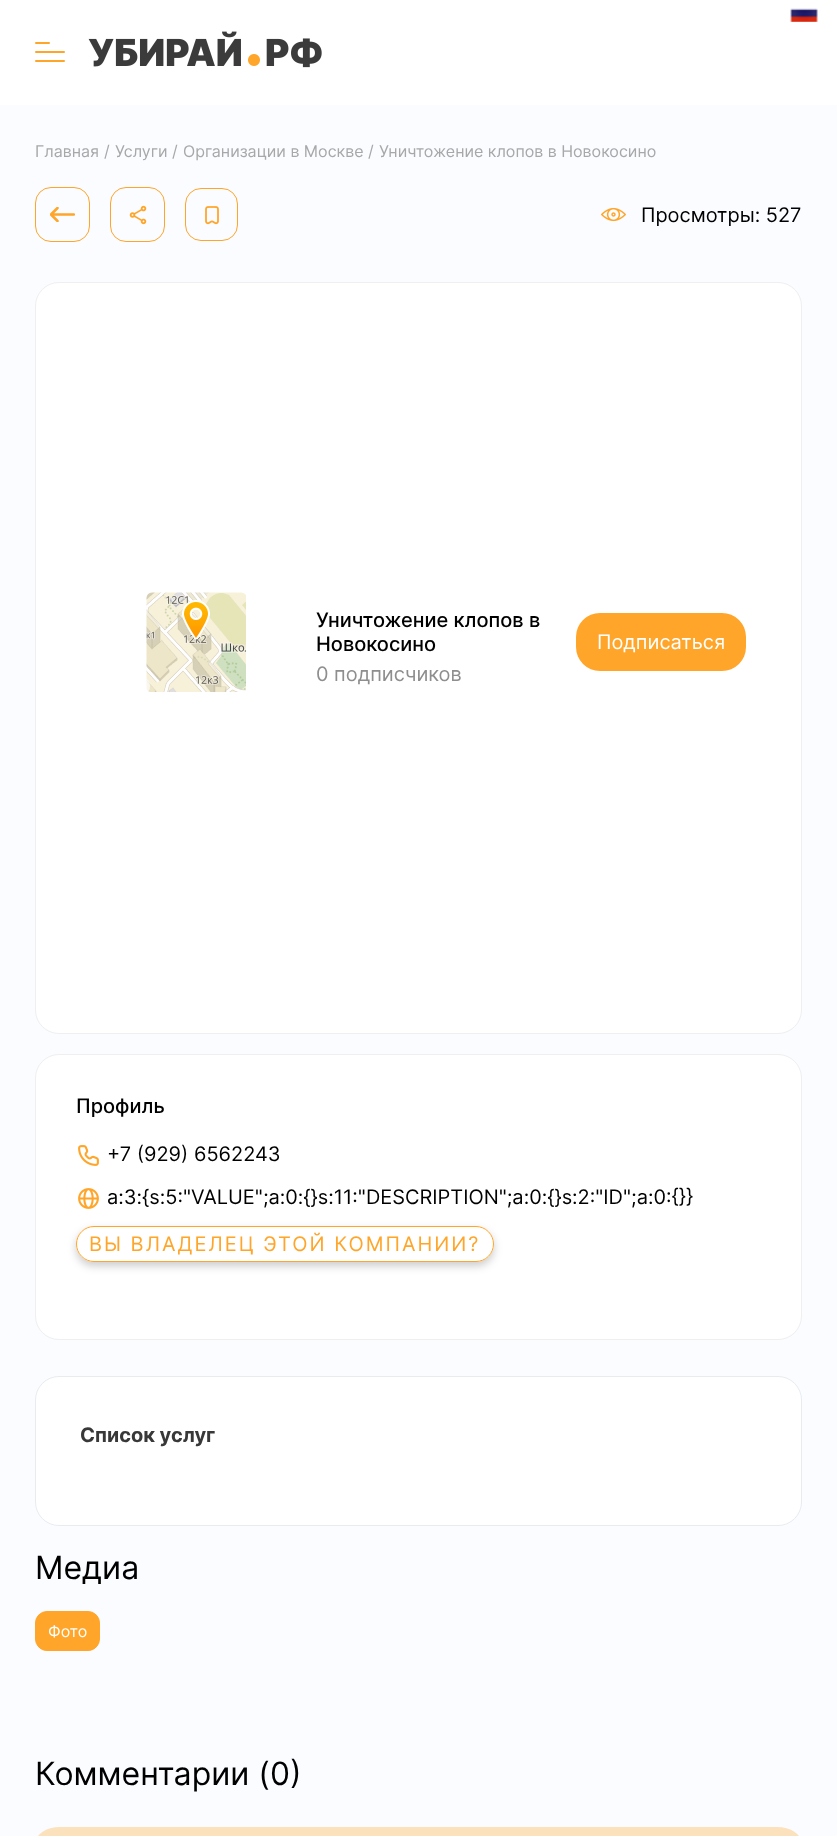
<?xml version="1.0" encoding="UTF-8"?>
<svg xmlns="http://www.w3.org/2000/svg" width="837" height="1836">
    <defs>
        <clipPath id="clip1"><rect x="50" y="207" width="25" height="15"/></clipPath>
        <clipPath id="clip2"><path d="M 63 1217 H 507 V 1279 H 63 Z M 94 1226 H 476 C 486 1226 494 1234 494 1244 C 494 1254 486 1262 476 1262 H 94 C 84 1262 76 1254 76 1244 C 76 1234 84 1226 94 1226 Z" clip-rule="evenodd"/></clipPath>
        <filter id="blur1" x="-50%" y="-200%" width="200%" height="500%"><feGaussianBlur stdDeviation="4"/></filter>
    </defs>
    <rect width="100%" height="100%" fill="#FFFFFF"/>
    <image x="790" y="8" width="28" height="14" href="img_01.png"/>
    <rect x="35" y="42" width="15" height="2" rx="1" fill="#FFA529"/>
    <rect x="35" y="51" width="30" height="2" rx="1" fill="#FFA529"/>
    <rect x="35" y="60" width="30" height="2" rx="1" fill="#FFA529"/>
    <image x="88" y="31" width="234" height="37" href="img_02.png"/>
    <rect x="0" y="105" width="837" height="1731" fill="#FAFCFF"/>
    <text x="35" y="157" font-family="Inter" font-size="16" fill="#A8A8A8">Главная</text>
    <text x="104" y="157" font-family="Inter" font-size="16" fill="#A8A8A8">/</text>
    <text x="115" y="157" font-family="Inter" font-size="16" fill="#A8A8A8">Услуги</text>
    <text x="172" y="157" font-family="Inter" font-size="16" fill="#A8A8A8">/</text>
    <text x="183" y="157" font-family="Inter" font-size="16" fill="#A8A8A8">Организации в Москве</text>
    <text x="368" y="157" font-family="Inter" font-size="16" fill="#A8A8A8">/</text>
    <text x="379" y="157" font-family="Inter" font-size="16" fill="#A8A8A8">Уничтожение клопов в Новокосино</text>
    <rect x="35.5" y="187.5" width="54" height="54" rx="15.5" fill="none" stroke="#FFA529"/>
    <g clip-path="url(#clip1)">
        <path d="M 74 214.5 H 51 M 51 214.5 L 57.5 221 M 51 214.5 L 57.5 208" fill="none" stroke="#FFA529" stroke-width="2.5" stroke-linecap="round" stroke-linejoin="round"/>
    </g>
    <rect x="110.5" y="187.5" width="54" height="54" rx="15.5" fill="none" stroke="#FFA529"/>
    <image x="129" y="205" width="18" height="20" href="img_03.png"/>
    <rect x="185.5" y="188.5" width="52" height="52" rx="15.5" fill="none" stroke="#FFA529"/>
    <image x="205" y="206" width="14" height="19" href="img_04.png"/>
    <image x="601" y="207" width="25" height="15" href="img_05.png"/>
    <text x="641" y="222" font-family="Inter" font-size="20" fill="#000000">Просмотры: 527</text>
    <rect x="35.5" y="282.5" width="766" height="751" rx="23.5" fill="#FFFFFF" stroke="#EFEFEF"/>
    <image x="146" y="592" width="100" height="100" href="img_06.png"/>
    <text font-family="Inter" font-size="20" font-weight="500" fill="#000000">
        <tspan x="316" y="627">Уничтожение клопов в</tspan>
        <tspan x="316" y="651">Новокосино</tspan>
    </text>
    <text x="316" y="681" font-family="Inter" font-size="20" fill="#8E8E8E">0 подписчиков</text>
    <rect x="576" y="613" width="170" height="58" rx="24" fill="#FFA529"/>
    <text x="597" y="649" font-family="Inter" font-size="20" fill="#FFFFFF">Подписаться</text>
    <rect x="35.5" y="1054.5" width="766" height="285" rx="23.5" fill="#FFFFFF" stroke="#EFEFEF"/>
    <text x="76" y="1113" font-family="Inter" font-size="20" font-weight="500" fill="#000000">Профиль</text>
    <image x="78" y="1145" width="21" height="21" href="img_07.png"/>
    <text x="107" y="1161" font-family="Inter" font-size="20" fill="#000000">+7 (929) 6562243</text>
    <image x="78" y="1188" width="21" height="21" href="img_08.png"/>
    <text x="107" y="1204" font-family="Inter" font-size="20" fill="#000000">a:3:{s:5:"VALUE";a:0:{}s:11:"DESCRIPTION";a:0:{}s:2:"ID";a:0:{}}</text>
    <g clip-path="url(#clip2)">
        <rect x="76" y="1230" width="418" height="36" rx="18" fill="#000000" fill-opacity="0.2" filter="url(#blur1)"/>
    </g>
    <rect x="76.5" y="1226.5" width="417" height="35" rx="17.5" fill="none" stroke="#FFA529"/>
    <text x="89" y="1251" font-family="Inter" font-size="20" letter-spacing="2" fill="#FFA529">ВЫ ВЛАДЕЛЕЦ ЭТОЙ КОМПАНИИ?</text>
    <rect x="35.5" y="1376.5" width="766" height="149" rx="23.5" fill="#FFFFFF" stroke="#E9ECEF"/>
    <text x="80" y="1442" font-family="Inter" font-size="20" font-weight="700" fill="#383838">Список услуг</text>
    <text x="35" y="1579" font-family="Inter" font-size="32" fill="#000000">Медиа</text>
    <rect x="35.5" y="1611.5" width="64" height="39" rx="11.5" fill="#FFA529" stroke="#FFA529"/>
    <text x="48" y="1637" font-family="Inter" font-size="16" fill="#FFFFFF">Фото</text>
    <text x="35" y="1785" font-family="Inter" font-size="32" fill="#000000">Комментарии (0)</text>
    <rect x="35" y="1827" width="767" height="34" rx="25" fill="#FCE1BD"/>
</svg>
